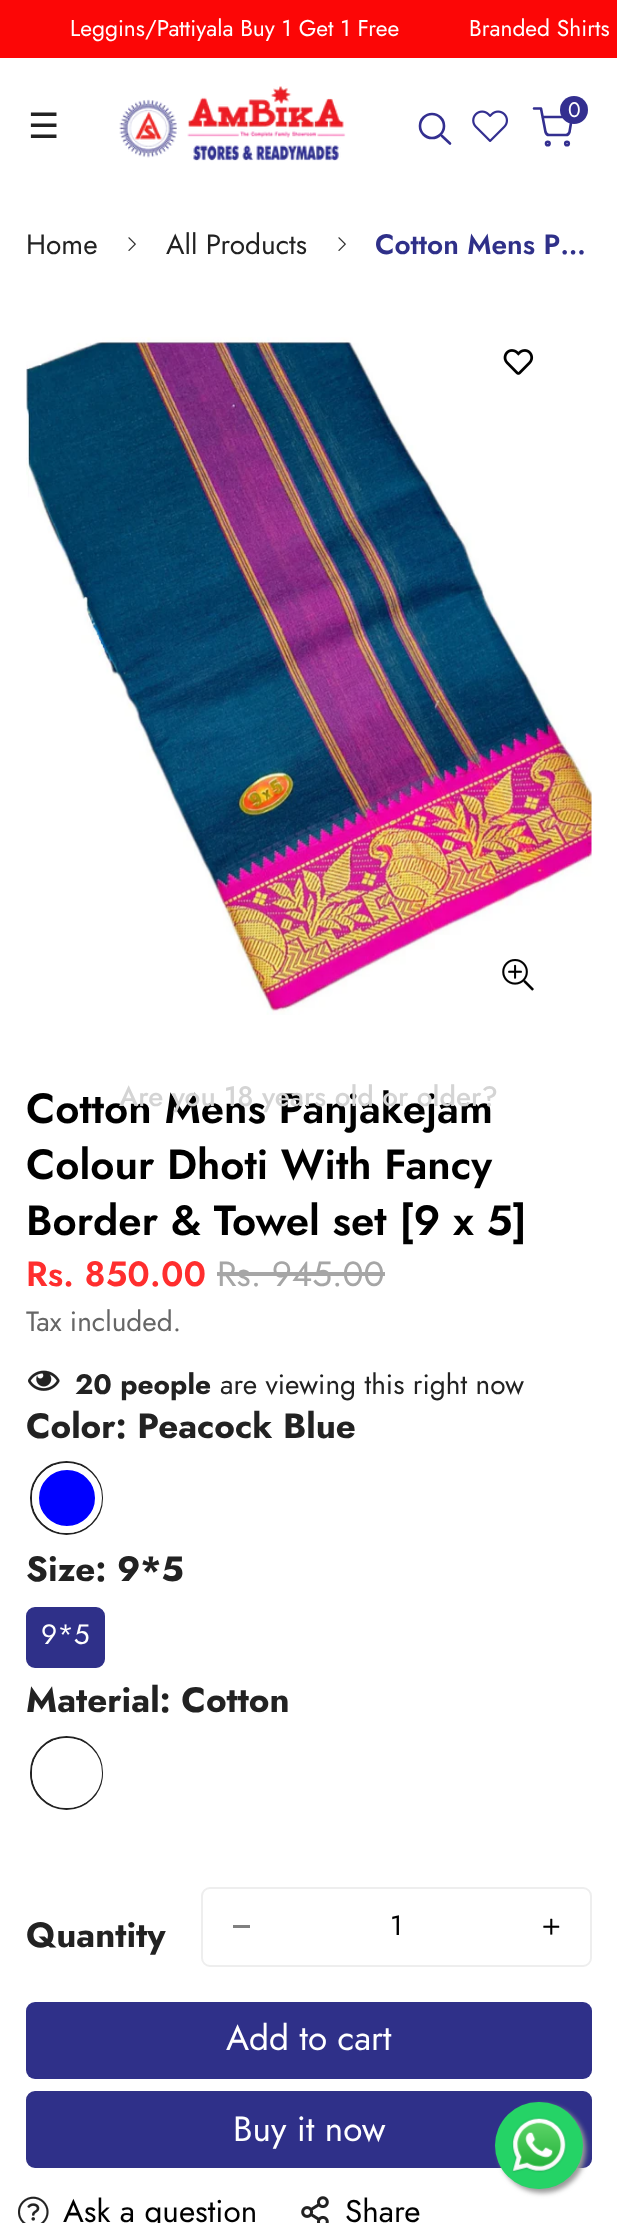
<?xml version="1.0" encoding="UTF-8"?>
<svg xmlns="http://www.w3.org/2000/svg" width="617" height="2223">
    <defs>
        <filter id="blur1" x="-50%" y="-200%" width="200%" height="500%"><feGaussianBlur stdDeviation="2.5"/></filter>
    </defs>
    <rect width="100%" height="100%" fill="#FFFFFF"/>
    <rect x="0" y="0" width="617" height="58" fill="#FC0606"/>
    <text x="70" y="36" font-family="Jost" font-size="22.75" fill="#FFFFFF">Leggins/Pattiyala Buy 1 Get 1 Free</text>
    <text x="469" y="36" font-family="Jost" font-size="22.75" fill="#FFFFFF">Branded Shirts</text>
    <image x="119" y="86" width="227" height="75" href="img_01.png"/>
    <circle cx="432" cy="126" r="12" fill="none" stroke="#332F90" stroke-width="2.6"/>
    <path d="M 442 136 L 450 143.5" fill="none" stroke="#332F90" stroke-width="2.6" stroke-linecap="round" stroke-linejoin="round"/>
    <image x="472" y="110" width="36" height="32" href="img_02.png"/>
    <path d="M 534 108.5 H 541 L 545.5 132 C 546 133.5 547 135 549 135 H 566 C 567.5 135 569 133.5 569.5 132 L 572 117 H 542.5" fill="none" stroke="#332F90" stroke-width="2.6" stroke-linecap="round" stroke-linejoin="round"/>
    <circle cx="574" cy="110" r="14" fill="#332F90"/>
    <text x="568" y="117" font-family="Jost" font-size="21" fill="#FFFFFF">0</text>
    <circle cx="547.8" cy="143.5" r="1.8" fill="none" stroke="#332F90" stroke-width="2.6"/>
    <circle cx="567" cy="143.5" r="1.8" fill="none" stroke="#332F90" stroke-width="2.6"/>
    <text x="28" y="138" font-family="DejaVu Sans" font-size="35" fill="#222222">☰</text>
    <text x="26" y="254" font-family="Jost" font-size="28" fill="#222222">Home</text>
    <image x="128" y="237" width="8" height="14" href="img_03.png"/>
    <text x="166" y="254" font-family="Jost" font-size="28" fill="#222222">All Products</text>
    <image x="338" y="237" width="8" height="14" href="img_03.png"/>
    <text x="375" y="254" font-family="Jost" font-size="28" font-weight="600" fill="#2F3089">Cotton Mens P…</text>
    <image x="26" y="337" width="566" height="678" href="img_04.png"/>
    <image x="502" y="959" width="32" height="32" href="img_05.png"/>
    <image x="503" y="349" width="31" height="26" href="img_06.png"/>
    <text font-family="Jost" font-size="42" font-weight="600" fill="#000000">
        <tspan x="26" y="1123">Cotton Mens Panjakejam</tspan>
        <tspan x="26" y="1179">Colour Dhoti With Fancy</tspan>
        <tspan x="26" y="1235">Border &amp; Towel set [9 x 5]</tspan>
    </text>
    <text x="26" y="1286" font-family="Jost" font-size="35" font-weight="600" fill="#FF2E2E">Rs. 850.00</text>
    <text x="217" y="1286" font-family="Jost" font-size="35" fill="#A6A6A6">Rs. 945.00</text>
    <rect x="217" y="1272" width="168" height="4" fill="#A6A6A6"/>
    <text x="26" y="1331" font-family="Jost" font-size="28" fill="#666666">Tax included.</text>
    <image x="28" y="1370" width="32" height="21" href="img_07.png"/>
    <text x="75" y="1394" font-family="Jost" font-size="28" font-weight="700" fill="#222222">20 people</text>
    <text x="220" y="1394" font-family="Jost" font-size="28" fill="#222222">are viewing this right now</text>
    <text x="26" y="1438" font-family="Jost" font-size="35" font-weight="700" fill="#222222">Color: Peacock Blue</text>
    <rect x="31" y="1462" width="71" height="72" rx="35.5" fill="none" stroke="#222222" stroke-width="2"/>
    <circle cx="67" cy="1498" r="31.5" fill="#0000FF" stroke="#FFFFFF" stroke-width="7"/>
    <text x="26" y="1581" font-family="Jost" font-size="35" font-weight="700" fill="#222222">Size: 9*5</text>
    <rect x="27" y="1608" width="77" height="59" rx="8" fill="#2F3089" stroke="#2F3089" stroke-width="2"/>
    <text x="41" y="1644" font-family="Jost" font-size="28" fill="#FFFFFF">9*5</text>
    <text x="26" y="1712" font-family="Jost" font-size="35" font-weight="700" fill="#222222">Material: Cotton</text>
    <rect x="31" y="1737" width="71" height="72" rx="35.5" fill="none" stroke="#222222" stroke-width="2"/>
    <circle cx="67" cy="1773" r="31.5" fill="none" stroke="#FFFFFF" stroke-width="7"/>
    <text x="26" y="1947" font-family="Jost" font-size="35" font-weight="700" fill="#222222">Quantity</text>
    <rect x="202" y="1888" width="389" height="78" rx="8" fill="none" stroke="#EEEEEE" stroke-width="2"/>
    <rect x="233" y="1925" width="17" height="3" fill="#808080"/>
    <text x="390" y="1935" font-family="Jost" font-size="28" fill="#000000">1</text>
    <image x="543" y="1918" width="17" height="17" href="img_08.png"/>
    <rect x="26" y="2002" width="566" height="77" rx="9" fill="#2F3089"/>
    <text x="226" y="2050" font-family="Jost" font-size="35" fill="#FFFFFF">Add to cart</text>
    <rect x="27" y="2092" width="564" height="75" rx="8" fill="#2F3089" stroke="#303187" stroke-width="2"/>
    <text x="233" y="2141" font-family="Jost" font-size="35" fill="#FFFFFF">Buy it now</text>
    <image x="18" y="2196" width="31" height="27" href="img_09.png"/>
    <text x="63" y="2222" font-family="Jost" font-size="31.5" fill="#000000">Ask a question</text>
    <image x="301" y="2196" width="28" height="27" href="img_10.png"/>
    <text x="345" y="2222" font-family="Jost" font-size="31.5" fill="#000000">Share</text>
    <text x="119" y="1106" font-family="Jost" font-size="28" font-weight="500" fill="#D4D4D4">Are you 18 years old or older?</text>
    <rect x="499" y="2105" width="87" height="88" rx="43.5" fill="#999999" filter="url(#blur1)"/>
    <rect x="495" y="2102" width="88" height="87" rx="43.5" fill="#25D366"/>
    <image x="512" y="2117" width="55" height="56" href="img_11.png"/>
</svg>
